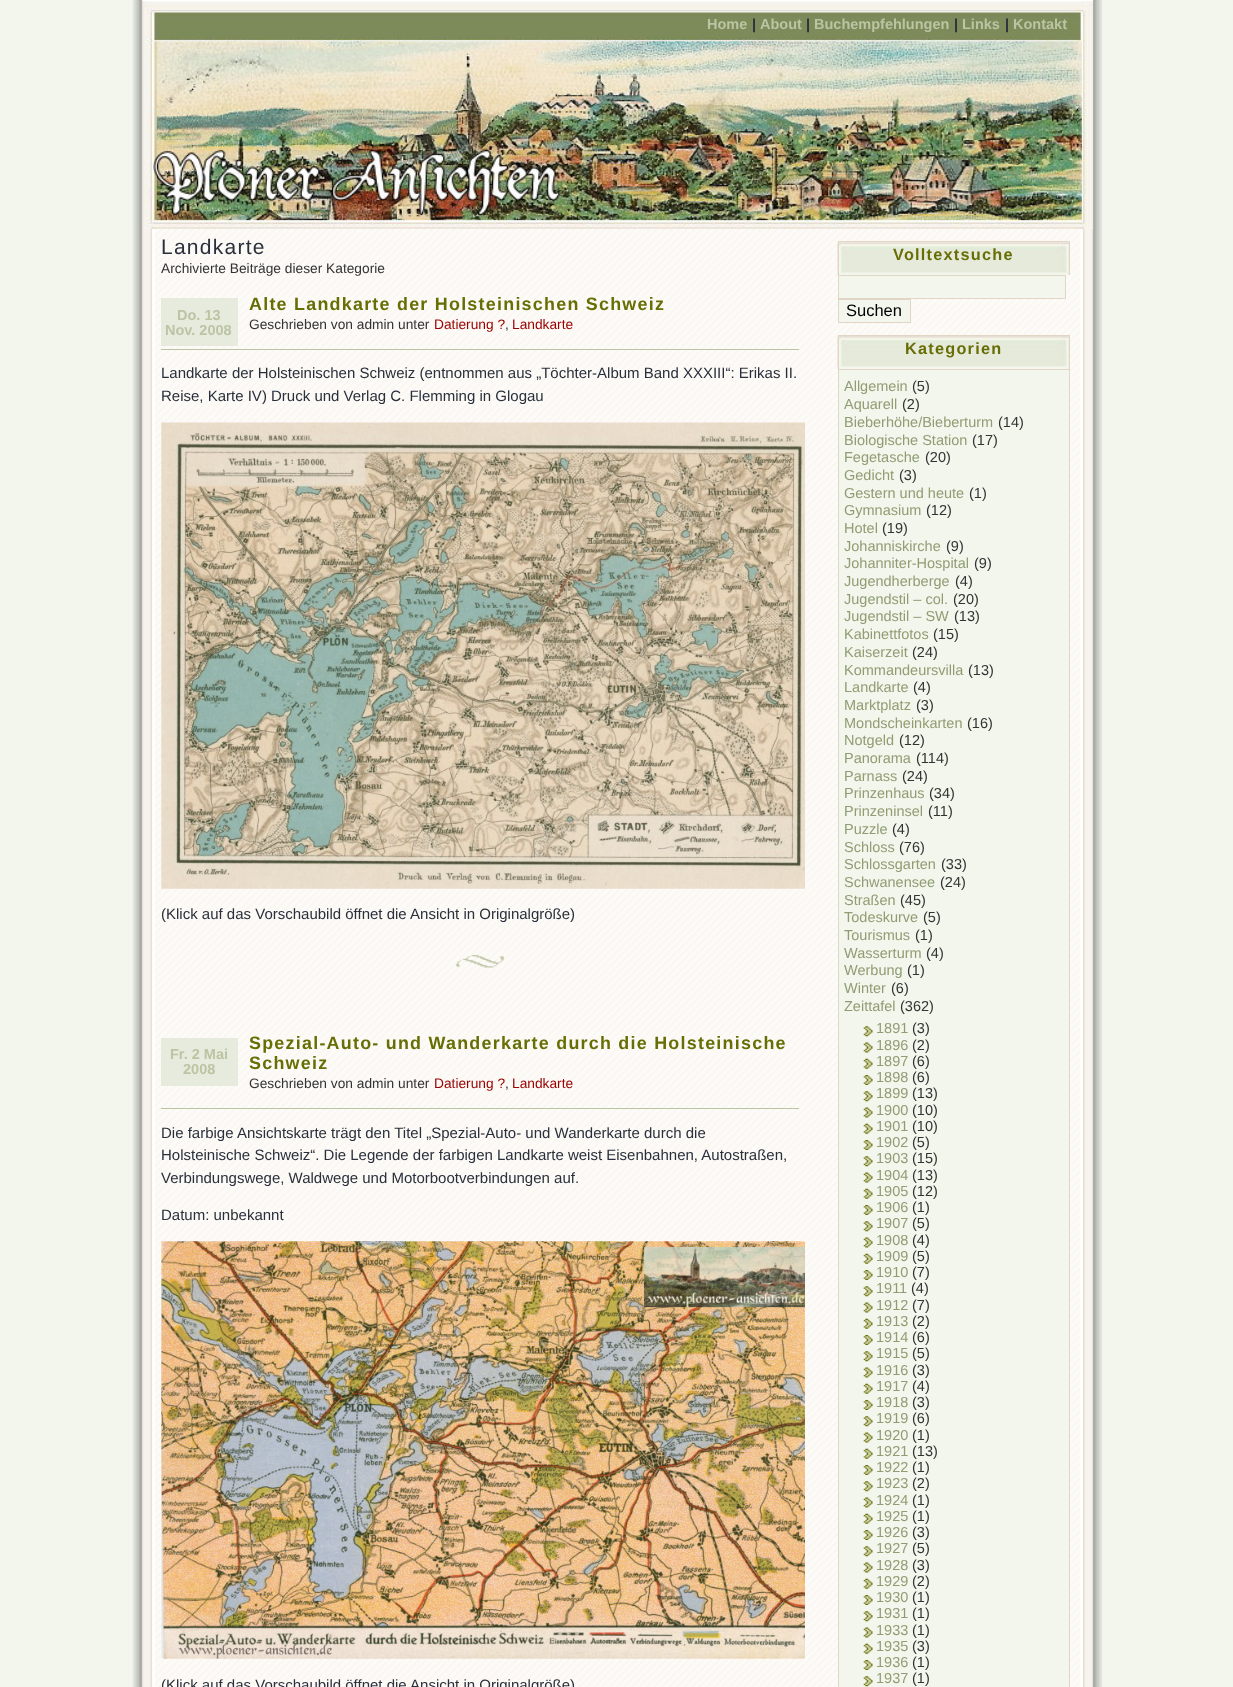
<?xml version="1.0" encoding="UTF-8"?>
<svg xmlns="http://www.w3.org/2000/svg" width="1233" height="1687">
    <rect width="100%" height="100%" fill="#F3F6ED"/>
    <rect x="1102" y="0" width="1" height="1687" fill="#FFFFFF"/>
    <image x="132" y="0" width="971" height="1687" href="img_01.png"/>
    <rect x="143" y="0" width="950" height="229" fill="#FFFFFF"/>
    <image x="142" y="0" width="951" height="229" href="img_02.png"/>
    <text x="707" y="29" font-family="Liberation Sans" font-size="14.5" font-weight="700" fill="#BBC4A3">Home</text>
    <text x="752" y="29" font-family="Liberation Sans" font-size="14.5" font-weight="700" fill="#29303B">|</text>
    <text x="760" y="29" font-family="Liberation Sans" font-size="14.5" font-weight="700" fill="#BBC4A3">About</text>
    <text x="806" y="29" font-family="Liberation Sans" font-size="14.5" font-weight="700" fill="#29303B">|</text>
    <text x="814" y="29" font-family="Liberation Sans" font-size="14.5" font-weight="700" fill="#BBC4A3">Buchempfehlungen</text>
    <text x="954" y="29" font-family="Liberation Sans" font-size="14.5" font-weight="700" fill="#29303B">|</text>
    <text x="962" y="29" font-family="Liberation Sans" font-size="14.5" font-weight="700" fill="#BBC4A3">Links</text>
    <text x="1005" y="29" font-family="Liberation Sans" font-size="14.5" font-weight="700" fill="#29303B">|</text>
    <text x="1013" y="29" font-family="Liberation Sans" font-size="14.5" font-weight="700" fill="#BBC4A3">Kontakt</text>
    <image x="155" y="228" width="925" height="1459" href="img_03.png"/>
    <text x="161" y="254" font-family="Liberation Sans" font-size="21" letter-spacing="1.25" fill="#29303B">Landkarte</text>
    <text x="161" y="273" font-family="Liberation Sans" font-size="13.75" fill="#333333">Archivierte Beiträge dieser Kategorie</text>
    <rect x="161" y="298" width="77" height="48" fill="#E7EBDE"/>
    <text x="177" y="320" font-family="Liberation Sans" font-size="14.5" font-weight="700" fill="#BBC4A3">Do. 13</text>
    <text x="165" y="335" font-family="Liberation Sans" font-size="14.5" font-weight="700" fill="#BBC4A3">Nov. 2008</text>
    <text x="249" y="310" font-family="Liberation Sans" font-size="17.9" font-weight="700" letter-spacing="1.25" fill="#676E04">Alte Landkarte der Holsteinischen Schweiz</text>
    <text x="249" y="329" font-family="Liberation Sans" font-size="13.75" fill="#333333">Geschrieben von admin unter</text>
    <text x="434" y="329" font-family="Liberation Sans" font-size="13.75" fill="#990000">Datierung ?</text>
    <text x="505" y="329" font-family="Liberation Sans" font-size="13.75" fill="#333333">,</text>
    <text x="512" y="329" font-family="Liberation Sans" font-size="13.75" fill="#990000">Landkarte</text>
    <rect x="161" y="349" width="638" height="1" fill="#BBC4A3"/>
    <text font-family="Liberation Sans" font-size="15" fill="#29303B">
        <tspan x="161" y="378">Landkarte der Holsteinischen Schweiz (entnommen aus „Töchter-Album Band XXXIII“: Erikas II.</tspan>
        <tspan x="161" y="401">Reise, Karte IV) Druck und Verlag C. Flemming in Glogau</tspan>
    </text>
    <image x="161" y="422" width="644" height="467" href="img_04.png"/>
    <text x="161" y="919" font-family="Liberation Sans" font-size="15" fill="#29303B">(Klick auf das Vorschaubild öffnet die Ansicht in Originalgröße)</text>
    <image x="456" y="955" width="48" height="13" href="img_05.png"/>
    <rect x="161" y="1038" width="77" height="48" fill="#E7EBDE"/>
    <text x="170" y="1059" font-family="Liberation Sans" font-size="14.5" font-weight="700" fill="#BBC4A3">Fr. 2 Mai</text>
    <text x="183" y="1074" font-family="Liberation Sans" font-size="14.5" font-weight="700" fill="#BBC4A3">2008</text>
    <text font-family="Liberation Sans" font-size="17.9" font-weight="700" letter-spacing="1.25" fill="#676E04">
        <tspan x="249" y="1049">Spezial-Auto- und Wanderkarte durch die Holsteinische</tspan>
        <tspan x="249" y="1069">Schweiz</tspan>
    </text>
    <text x="249" y="1088" font-family="Liberation Sans" font-size="13.75" fill="#333333">Geschrieben von admin unter</text>
    <text x="434" y="1088" font-family="Liberation Sans" font-size="13.75" fill="#990000">Datierung ?</text>
    <text x="505" y="1088" font-family="Liberation Sans" font-size="13.75" fill="#333333">,</text>
    <text x="512" y="1088" font-family="Liberation Sans" font-size="13.75" fill="#990000">Landkarte</text>
    <rect x="161" y="1108" width="638" height="1" fill="#BBC4A3"/>
    <text font-family="Liberation Sans" font-size="15" fill="#29303B">
        <tspan x="161" y="1138">Die farbige Ansichtskarte trägt den Titel „Spezial-Auto- und Wanderkarte durch die</tspan>
        <tspan x="161" y="1160">Holsteinische Schweiz“. Die Legende der farbigen Landkarte weist Eisenbahnen, Autostraßen,</tspan>
        <tspan x="161" y="1183">Verbindungswege, Waldwege und Motorbootverbindungen auf.</tspan>
    </text>
    <text x="161" y="1220" font-family="Liberation Sans" font-size="15" fill="#29303B">Datum: unbekannt</text>
    <image x="161" y="1241" width="644" height="418" href="img_06.png"/>
    <text x="161" y="1690" font-family="Liberation Sans" font-size="15" fill="#29303B">(Klick auf das Vorschaubild öffnet die Ansicht in Originalgröße)</text>
    <image x="837" y="242" width="232" height="33" href="img_07.png"/>
    <rect x="838" y="241" width="232" height="1" fill="#E1D6C6"/>
    <rect x="1069" y="241" width="1" height="34" fill="#E1D6C6"/>
    <rect x="838" y="241" width="1" height="34" fill="#E1D6C6"/>
    <text x="893" y="260" font-family="Liberation Sans" font-size="16.25" font-weight="700" letter-spacing="1.25" fill="#676E04">Volltextsuche</text>
    <rect x="838.5" y="275.5" width="227" height="23" fill="#F3F6ED" stroke="#E1D6C6"/>
    <rect x="838.5" y="299.5" width="72" height="23" fill="#F3F6ED" stroke="#E1D6C6"/>
    <text x="846" y="316" font-family="Liberation Sans" font-size="16.5" fill="#000000">Suchen</text>
    <image x="837" y="336" width="232" height="33" href="img_08.png"/>
    <rect x="838" y="335" width="232" height="1" fill="#E1D6C6"/>
    <rect x="1069" y="335" width="1" height="34" fill="#E1D6C6"/>
    <rect x="838" y="335" width="1" height="34" fill="#E1D6C6"/>
    <text x="905" y="354" font-family="Liberation Sans" font-size="16.25" font-weight="700" letter-spacing="1.25" fill="#676E04">Kategorien</text>
    <rect x="838.5" y="369.5" width="231" height="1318" fill="#F3F6ED" stroke="#E1D6C6"/>
    <text x="844" y="391" font-family="Liberation Sans" font-size="14.5" fill="#909D73">Allgemein</text>
    <text x="912" y="391" font-family="Liberation Sans" font-size="14.5" fill="#333333">(5)</text>
    <text x="844" y="409" font-family="Liberation Sans" font-size="14.5" fill="#909D73">Aquarell</text>
    <text x="902" y="409" font-family="Liberation Sans" font-size="14.5" fill="#333333">(2)</text>
    <text x="844" y="427" font-family="Liberation Sans" font-size="14.5" fill="#909D73">Bieberhöhe/Bieberturm</text>
    <text x="998" y="427" font-family="Liberation Sans" font-size="14.5" fill="#333333">(14)</text>
    <text x="844" y="445" font-family="Liberation Sans" font-size="14.5" fill="#909D73">Biologische Station</text>
    <text x="972" y="445" font-family="Liberation Sans" font-size="14.5" fill="#333333">(17)</text>
    <text x="844" y="462" font-family="Liberation Sans" font-size="14.5" fill="#909D73">Fegetasche</text>
    <text x="925" y="462" font-family="Liberation Sans" font-size="14.5" fill="#333333">(20)</text>
    <text x="844" y="480" font-family="Liberation Sans" font-size="14.5" fill="#909D73">Gedicht</text>
    <text x="899" y="480" font-family="Liberation Sans" font-size="14.5" fill="#333333">(3)</text>
    <text x="844" y="498" font-family="Liberation Sans" font-size="14.5" fill="#909D73">Gestern und heute</text>
    <text x="969" y="498" font-family="Liberation Sans" font-size="14.5" fill="#333333">(1)</text>
    <text x="844" y="515" font-family="Liberation Sans" font-size="14.5" fill="#909D73">Gymnasium</text>
    <text x="926" y="515" font-family="Liberation Sans" font-size="14.5" fill="#333333">(12)</text>
    <text x="844" y="533" font-family="Liberation Sans" font-size="14.5" fill="#909D73">Hotel</text>
    <text x="882" y="533" font-family="Liberation Sans" font-size="14.5" fill="#333333">(19)</text>
    <text x="844" y="551" font-family="Liberation Sans" font-size="14.5" fill="#909D73">Johanniskirche</text>
    <text x="946" y="551" font-family="Liberation Sans" font-size="14.5" fill="#333333">(9)</text>
    <text x="844" y="568" font-family="Liberation Sans" font-size="14.5" fill="#909D73">Johanniter-Hospital</text>
    <text x="974" y="568" font-family="Liberation Sans" font-size="14.5" fill="#333333">(9)</text>
    <text x="844" y="586" font-family="Liberation Sans" font-size="14.5" fill="#909D73">Jugendherberge</text>
    <text x="955" y="586" font-family="Liberation Sans" font-size="14.5" fill="#333333">(4)</text>
    <text x="844" y="604" font-family="Liberation Sans" font-size="14.5" fill="#909D73">Jugendstil – col.</text>
    <text x="953" y="604" font-family="Liberation Sans" font-size="14.5" fill="#333333">(20)</text>
    <text x="844" y="621" font-family="Liberation Sans" font-size="14.5" fill="#909D73">Jugendstil – SW</text>
    <text x="954" y="621" font-family="Liberation Sans" font-size="14.5" fill="#333333">(13)</text>
    <text x="844" y="639" font-family="Liberation Sans" font-size="14.5" fill="#909D73">Kabinettfotos</text>
    <text x="933" y="639" font-family="Liberation Sans" font-size="14.5" fill="#333333">(15)</text>
    <text x="844" y="657" font-family="Liberation Sans" font-size="14.5" fill="#909D73">Kaiserzeit</text>
    <text x="912" y="657" font-family="Liberation Sans" font-size="14.5" fill="#333333">(24)</text>
    <text x="844" y="675" font-family="Liberation Sans" font-size="14.5" fill="#909D73">Kommandeursvilla</text>
    <text x="968" y="675" font-family="Liberation Sans" font-size="14.5" fill="#333333">(13)</text>
    <text x="844" y="692" font-family="Liberation Sans" font-size="14.5" fill="#909D73">Landkarte</text>
    <text x="913" y="692" font-family="Liberation Sans" font-size="14.5" fill="#333333">(4)</text>
    <text x="844" y="710" font-family="Liberation Sans" font-size="14.5" fill="#909D73">Marktplatz</text>
    <text x="916" y="710" font-family="Liberation Sans" font-size="14.5" fill="#333333">(3)</text>
    <text x="844" y="728" font-family="Liberation Sans" font-size="14.5" fill="#909D73">Mondscheinkarten</text>
    <text x="967" y="728" font-family="Liberation Sans" font-size="14.5" fill="#333333">(16)</text>
    <text x="844" y="745" font-family="Liberation Sans" font-size="14.5" fill="#909D73">Notgeld</text>
    <text x="899" y="745" font-family="Liberation Sans" font-size="14.5" fill="#333333">(12)</text>
    <text x="844" y="763" font-family="Liberation Sans" font-size="14.5" fill="#909D73">Panorama</text>
    <text x="916" y="763" font-family="Liberation Sans" font-size="14.5" fill="#333333">(114)</text>
    <text x="844" y="781" font-family="Liberation Sans" font-size="14.5" fill="#909D73">Parnass</text>
    <text x="902" y="781" font-family="Liberation Sans" font-size="14.5" fill="#333333">(24)</text>
    <text x="844" y="798" font-family="Liberation Sans" font-size="14.5" fill="#909D73">Prinzenhaus</text>
    <text x="929" y="798" font-family="Liberation Sans" font-size="14.5" fill="#333333">(34)</text>
    <text x="844" y="816" font-family="Liberation Sans" font-size="14.5" fill="#909D73">Prinzeninsel</text>
    <text x="928" y="816" font-family="Liberation Sans" font-size="14.5" fill="#333333">(11)</text>
    <text x="844" y="834" font-family="Liberation Sans" font-size="14.5" fill="#909D73">Puzzle</text>
    <text x="892" y="834" font-family="Liberation Sans" font-size="14.5" fill="#333333">(4)</text>
    <text x="844" y="852" font-family="Liberation Sans" font-size="14.5" fill="#909D73">Schloss</text>
    <text x="899" y="852" font-family="Liberation Sans" font-size="14.5" fill="#333333">(76)</text>
    <text x="844" y="869" font-family="Liberation Sans" font-size="14.5" fill="#909D73">Schlossgarten</text>
    <text x="941" y="869" font-family="Liberation Sans" font-size="14.5" fill="#333333">(33)</text>
    <text x="844" y="887" font-family="Liberation Sans" font-size="14.5" fill="#909D73">Schwanensee</text>
    <text x="940" y="887" font-family="Liberation Sans" font-size="14.5" fill="#333333">(24)</text>
    <text x="844" y="905" font-family="Liberation Sans" font-size="14.5" fill="#909D73">Straßen</text>
    <text x="900" y="905" font-family="Liberation Sans" font-size="14.5" fill="#333333">(45)</text>
    <text x="844" y="922" font-family="Liberation Sans" font-size="14.5" fill="#909D73">Todeskurve</text>
    <text x="923" y="922" font-family="Liberation Sans" font-size="14.5" fill="#333333">(5)</text>
    <text x="844" y="940" font-family="Liberation Sans" font-size="14.5" fill="#909D73">Tourismus</text>
    <text x="915" y="940" font-family="Liberation Sans" font-size="14.5" fill="#333333">(1)</text>
    <text x="844" y="958" font-family="Liberation Sans" font-size="14.5" fill="#909D73">Wasserturm</text>
    <text x="926" y="958" font-family="Liberation Sans" font-size="14.5" fill="#333333">(4)</text>
    <text x="844" y="975" font-family="Liberation Sans" font-size="14.5" fill="#909D73">Werbung</text>
    <text x="907" y="975" font-family="Liberation Sans" font-size="14.5" fill="#333333">(1)</text>
    <text x="844" y="993" font-family="Liberation Sans" font-size="14.5" fill="#909D73">Winter</text>
    <text x="891" y="993" font-family="Liberation Sans" font-size="14.5" fill="#333333">(6)</text>
    <text x="844" y="1011" font-family="Liberation Sans" font-size="14.5" fill="#909D73">Zeittafel</text>
    <text x="900" y="1011" font-family="Liberation Sans" font-size="14.5" fill="#333333">(362)</text>
    <image x="863" y="1026" width="10" height="11" href="img_09.png"/>
    <text x="876" y="1033" font-family="Liberation Sans" font-size="14.5" fill="#909D73">1891</text>
    <text x="912" y="1033" font-family="Liberation Sans" font-size="14.5" fill="#333333">(3)</text>
    <image x="863" y="1042" width="10" height="11" href="img_10.png"/>
    <text x="876" y="1050" font-family="Liberation Sans" font-size="14.5" fill="#909D73">1896</text>
    <text x="912" y="1050" font-family="Liberation Sans" font-size="14.5" fill="#333333">(2)</text>
    <image x="863" y="1058" width="10" height="11" href="img_11.png"/>
    <text x="876" y="1066" font-family="Liberation Sans" font-size="14.5" fill="#909D73">1897</text>
    <text x="912" y="1066" font-family="Liberation Sans" font-size="14.5" fill="#333333">(6)</text>
    <image x="863" y="1075" width="10" height="10" href="img_12.png"/>
    <text x="876" y="1082" font-family="Liberation Sans" font-size="14.5" fill="#909D73">1898</text>
    <text x="912" y="1082" font-family="Liberation Sans" font-size="14.5" fill="#333333">(6)</text>
    <image x="863" y="1091" width="10" height="11" href="img_09.png"/>
    <text x="876" y="1098" font-family="Liberation Sans" font-size="14.5" fill="#909D73">1899</text>
    <text x="912" y="1098" font-family="Liberation Sans" font-size="14.5" fill="#333333">(13)</text>
    <image x="863" y="1107" width="10" height="11" href="img_10.png"/>
    <text x="876" y="1115" font-family="Liberation Sans" font-size="14.5" fill="#909D73">1900</text>
    <text x="912" y="1115" font-family="Liberation Sans" font-size="14.5" fill="#333333">(10)</text>
    <image x="863" y="1123" width="10" height="11" href="img_11.png"/>
    <text x="876" y="1131" font-family="Liberation Sans" font-size="14.5" fill="#909D73">1901</text>
    <text x="912" y="1131" font-family="Liberation Sans" font-size="14.5" fill="#333333">(10)</text>
    <image x="863" y="1140" width="10" height="10" href="img_12.png"/>
    <text x="876" y="1147" font-family="Liberation Sans" font-size="14.5" fill="#909D73">1902</text>
    <text x="912" y="1147" font-family="Liberation Sans" font-size="14.5" fill="#333333">(5)</text>
    <image x="863" y="1156" width="10" height="11" href="img_09.png"/>
    <text x="876" y="1163" font-family="Liberation Sans" font-size="14.5" fill="#909D73">1903</text>
    <text x="912" y="1163" font-family="Liberation Sans" font-size="14.5" fill="#333333">(15)</text>
    <image x="863" y="1172" width="10" height="11" href="img_10.png"/>
    <text x="876" y="1180" font-family="Liberation Sans" font-size="14.5" fill="#909D73">1904</text>
    <text x="912" y="1180" font-family="Liberation Sans" font-size="14.5" fill="#333333">(13)</text>
    <image x="863" y="1188" width="10" height="11" href="img_11.png"/>
    <text x="876" y="1196" font-family="Liberation Sans" font-size="14.5" fill="#909D73">1905</text>
    <text x="912" y="1196" font-family="Liberation Sans" font-size="14.5" fill="#333333">(12)</text>
    <image x="863" y="1205" width="10" height="10" href="img_12.png"/>
    <text x="876" y="1212" font-family="Liberation Sans" font-size="14.5" fill="#909D73">1906</text>
    <text x="912" y="1212" font-family="Liberation Sans" font-size="14.5" fill="#333333">(1)</text>
    <image x="863" y="1221" width="10" height="11" href="img_09.png"/>
    <text x="876" y="1228" font-family="Liberation Sans" font-size="14.5" fill="#909D73">1907</text>
    <text x="912" y="1228" font-family="Liberation Sans" font-size="14.5" fill="#333333">(5)</text>
    <image x="863" y="1237" width="10" height="11" href="img_10.png"/>
    <text x="876" y="1245" font-family="Liberation Sans" font-size="14.5" fill="#909D73">1908</text>
    <text x="912" y="1245" font-family="Liberation Sans" font-size="14.5" fill="#333333">(4)</text>
    <image x="863" y="1253" width="10" height="11" href="img_11.png"/>
    <text x="876" y="1261" font-family="Liberation Sans" font-size="14.5" fill="#909D73">1909</text>
    <text x="912" y="1261" font-family="Liberation Sans" font-size="14.5" fill="#333333">(5)</text>
    <image x="863" y="1270" width="10" height="10" href="img_12.png"/>
    <text x="876" y="1277" font-family="Liberation Sans" font-size="14.5" fill="#909D73">1910</text>
    <text x="912" y="1277" font-family="Liberation Sans" font-size="14.5" fill="#333333">(7)</text>
    <image x="863" y="1286" width="10" height="11" href="img_09.png"/>
    <text x="876" y="1293" font-family="Liberation Sans" font-size="14.5" fill="#909D73">1911</text>
    <text x="911" y="1293" font-family="Liberation Sans" font-size="14.5" fill="#333333">(4)</text>
    <image x="863" y="1302" width="10" height="11" href="img_10.png"/>
    <text x="876" y="1310" font-family="Liberation Sans" font-size="14.5" fill="#909D73">1912</text>
    <text x="912" y="1310" font-family="Liberation Sans" font-size="14.5" fill="#333333">(7)</text>
    <image x="863" y="1318" width="10" height="11" href="img_11.png"/>
    <text x="876" y="1326" font-family="Liberation Sans" font-size="14.5" fill="#909D73">1913</text>
    <text x="912" y="1326" font-family="Liberation Sans" font-size="14.5" fill="#333333">(2)</text>
    <image x="863" y="1335" width="10" height="10" href="img_12.png"/>
    <text x="876" y="1342" font-family="Liberation Sans" font-size="14.5" fill="#909D73">1914</text>
    <text x="912" y="1342" font-family="Liberation Sans" font-size="14.5" fill="#333333">(6)</text>
    <image x="863" y="1351" width="10" height="11" href="img_09.png"/>
    <text x="876" y="1358" font-family="Liberation Sans" font-size="14.5" fill="#909D73">1915</text>
    <text x="912" y="1358" font-family="Liberation Sans" font-size="14.5" fill="#333333">(5)</text>
    <image x="863" y="1367" width="10" height="11" href="img_10.png"/>
    <text x="876" y="1375" font-family="Liberation Sans" font-size="14.5" fill="#909D73">1916</text>
    <text x="912" y="1375" font-family="Liberation Sans" font-size="14.5" fill="#333333">(3)</text>
    <image x="863" y="1383" width="10" height="11" href="img_11.png"/>
    <text x="876" y="1391" font-family="Liberation Sans" font-size="14.5" fill="#909D73">1917</text>
    <text x="912" y="1391" font-family="Liberation Sans" font-size="14.5" fill="#333333">(4)</text>
    <image x="863" y="1400" width="10" height="10" href="img_12.png"/>
    <text x="876" y="1407" font-family="Liberation Sans" font-size="14.5" fill="#909D73">1918</text>
    <text x="912" y="1407" font-family="Liberation Sans" font-size="14.5" fill="#333333">(3)</text>
    <image x="863" y="1416" width="10" height="11" href="img_09.png"/>
    <text x="876" y="1423" font-family="Liberation Sans" font-size="14.5" fill="#909D73">1919</text>
    <text x="912" y="1423" font-family="Liberation Sans" font-size="14.5" fill="#333333">(6)</text>
    <image x="863" y="1432" width="10" height="11" href="img_10.png"/>
    <text x="876" y="1440" font-family="Liberation Sans" font-size="14.5" fill="#909D73">1920</text>
    <text x="912" y="1440" font-family="Liberation Sans" font-size="14.5" fill="#333333">(1)</text>
    <image x="863" y="1448" width="10" height="11" href="img_11.png"/>
    <text x="876" y="1456" font-family="Liberation Sans" font-size="14.5" fill="#909D73">1921</text>
    <text x="912" y="1456" font-family="Liberation Sans" font-size="14.5" fill="#333333">(13)</text>
    <image x="863" y="1465" width="10" height="10" href="img_12.png"/>
    <text x="876" y="1472" font-family="Liberation Sans" font-size="14.5" fill="#909D73">1922</text>
    <text x="912" y="1472" font-family="Liberation Sans" font-size="14.5" fill="#333333">(1)</text>
    <image x="863" y="1481" width="10" height="11" href="img_09.png"/>
    <text x="876" y="1488" font-family="Liberation Sans" font-size="14.5" fill="#909D73">1923</text>
    <text x="912" y="1488" font-family="Liberation Sans" font-size="14.5" fill="#333333">(2)</text>
    <image x="863" y="1497" width="10" height="11" href="img_10.png"/>
    <text x="876" y="1505" font-family="Liberation Sans" font-size="14.5" fill="#909D73">1924</text>
    <text x="912" y="1505" font-family="Liberation Sans" font-size="14.5" fill="#333333">(1)</text>
    <image x="863" y="1513" width="10" height="11" href="img_11.png"/>
    <text x="876" y="1521" font-family="Liberation Sans" font-size="14.5" fill="#909D73">1925</text>
    <text x="912" y="1521" font-family="Liberation Sans" font-size="14.5" fill="#333333">(1)</text>
    <image x="863" y="1530" width="10" height="10" href="img_12.png"/>
    <text x="876" y="1537" font-family="Liberation Sans" font-size="14.5" fill="#909D73">1926</text>
    <text x="912" y="1537" font-family="Liberation Sans" font-size="14.5" fill="#333333">(3)</text>
    <image x="863" y="1546" width="10" height="11" href="img_09.png"/>
    <text x="876" y="1553" font-family="Liberation Sans" font-size="14.5" fill="#909D73">1927</text>
    <text x="912" y="1553" font-family="Liberation Sans" font-size="14.5" fill="#333333">(5)</text>
    <image x="863" y="1562" width="10" height="11" href="img_10.png"/>
    <text x="876" y="1570" font-family="Liberation Sans" font-size="14.5" fill="#909D73">1928</text>
    <text x="912" y="1570" font-family="Liberation Sans" font-size="14.5" fill="#333333">(3)</text>
    <image x="863" y="1578" width="10" height="11" href="img_11.png"/>
    <text x="876" y="1586" font-family="Liberation Sans" font-size="14.5" fill="#909D73">1929</text>
    <text x="912" y="1586" font-family="Liberation Sans" font-size="14.5" fill="#333333">(2)</text>
    <image x="863" y="1595" width="10" height="10" href="img_12.png"/>
    <text x="876" y="1602" font-family="Liberation Sans" font-size="14.5" fill="#909D73">1930</text>
    <text x="912" y="1602" font-family="Liberation Sans" font-size="14.5" fill="#333333">(1)</text>
    <image x="863" y="1611" width="10" height="11" href="img_09.png"/>
    <text x="876" y="1618" font-family="Liberation Sans" font-size="14.5" fill="#909D73">1931</text>
    <text x="912" y="1618" font-family="Liberation Sans" font-size="14.5" fill="#333333">(1)</text>
    <image x="863" y="1627" width="10" height="11" href="img_10.png"/>
    <text x="876" y="1635" font-family="Liberation Sans" font-size="14.5" fill="#909D73">1933</text>
    <text x="912" y="1635" font-family="Liberation Sans" font-size="14.5" fill="#333333">(1)</text>
    <image x="863" y="1643" width="10" height="11" href="img_11.png"/>
    <text x="876" y="1651" font-family="Liberation Sans" font-size="14.5" fill="#909D73">1935</text>
    <text x="912" y="1651" font-family="Liberation Sans" font-size="14.5" fill="#333333">(3)</text>
    <image x="863" y="1660" width="10" height="10" href="img_12.png"/>
    <text x="876" y="1667" font-family="Liberation Sans" font-size="14.5" fill="#909D73">1936</text>
    <text x="912" y="1667" font-family="Liberation Sans" font-size="14.5" fill="#333333">(1)</text>
    <image x="863" y="1676" width="10" height="11" href="img_09.png"/>
    <text x="876" y="1683" font-family="Liberation Sans" font-size="14.5" fill="#909D73">1937</text>
    <text x="912" y="1683" font-family="Liberation Sans" font-size="14.5" fill="#333333">(1)</text>
</svg>
